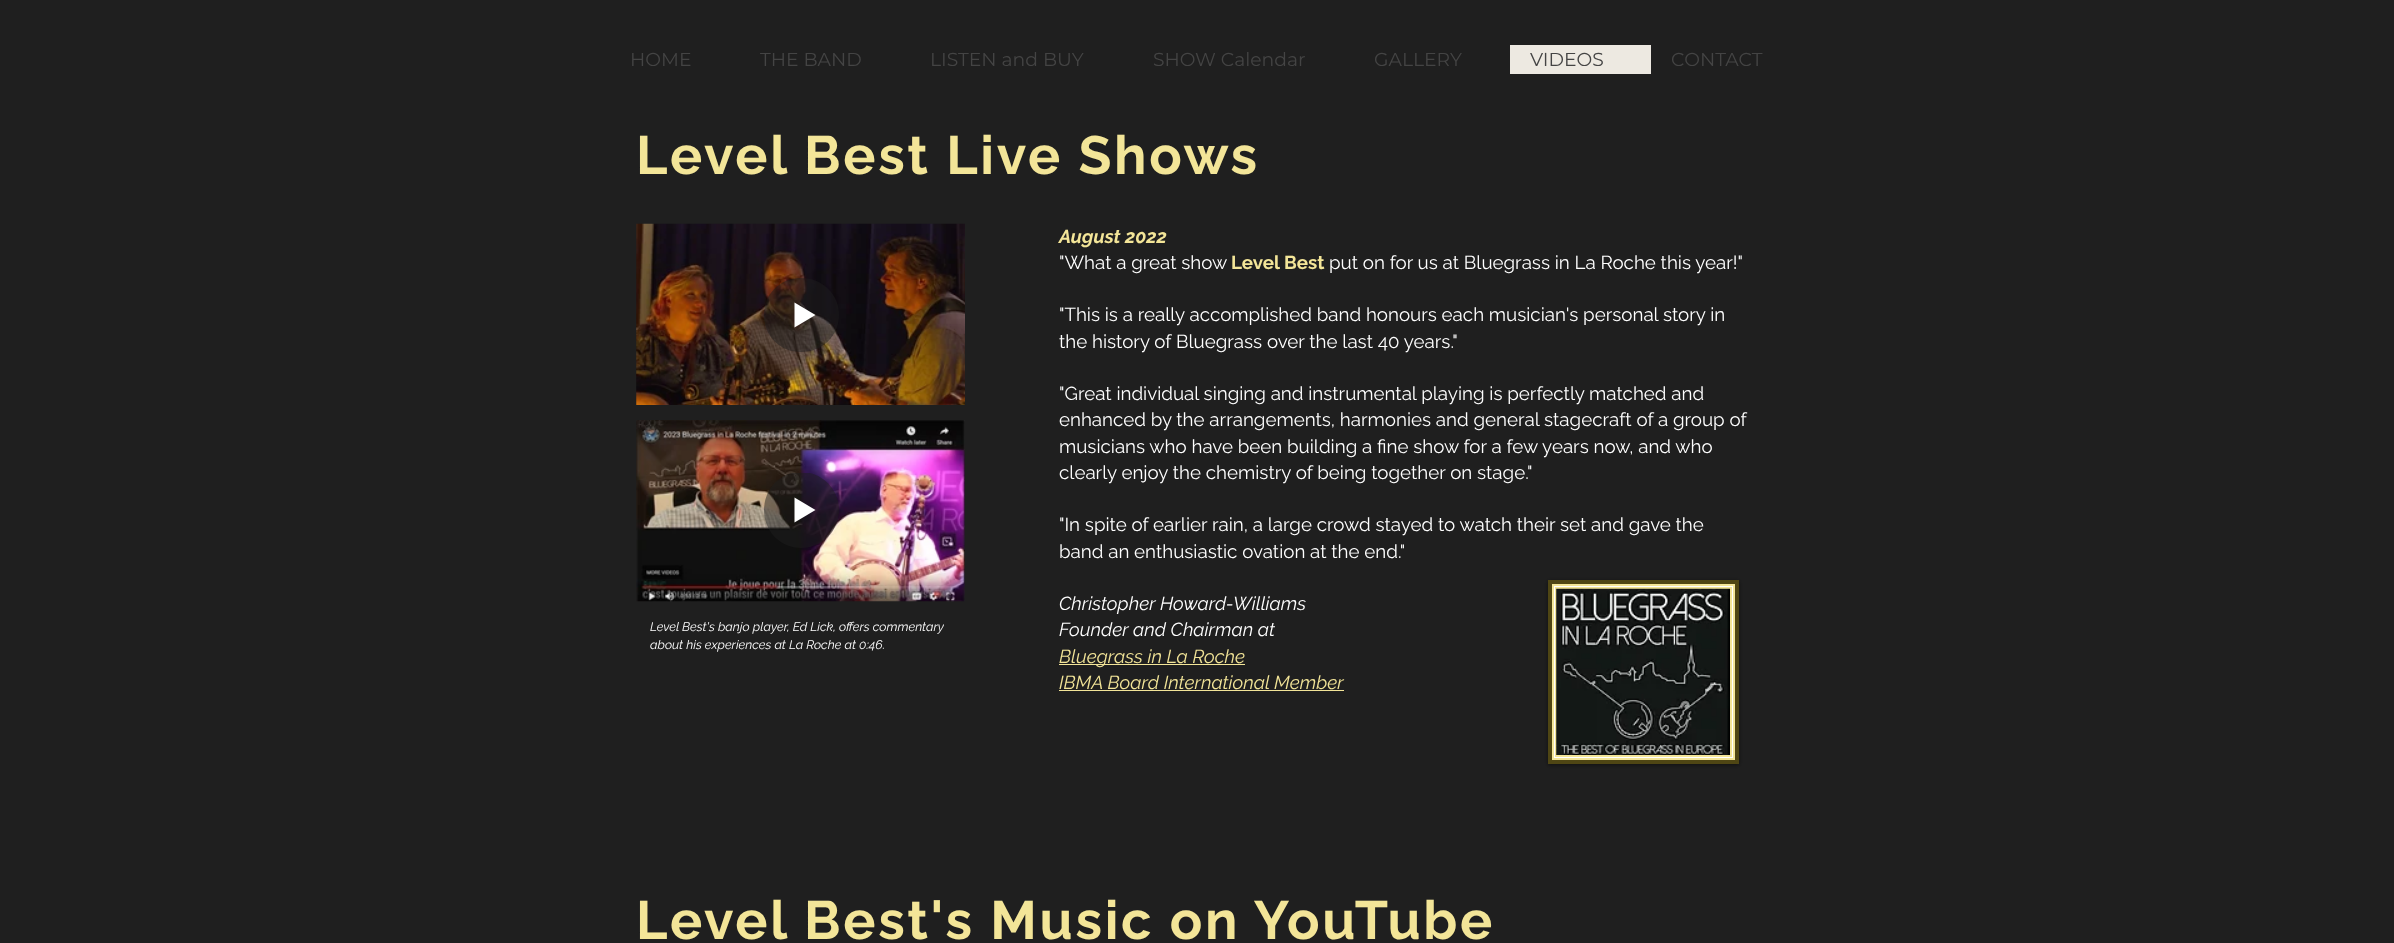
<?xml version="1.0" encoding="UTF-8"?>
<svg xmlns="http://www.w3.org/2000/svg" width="2394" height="943">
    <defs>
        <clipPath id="clip1"><rect x="764" y="473" width="75" height="75"/></clipPath>
        <filter id="blur1" x="-50%" y="-200%" width="200%" height="500%"><feGaussianBlur stdDeviation="2"/></filter>
    </defs>
    <rect width="100%" height="100%" fill="#1F1F1F"/>
    <text x="630" y="66" font-family="Montserrat" font-size="18.75" fill="#444444">HOME</text>
    <text x="760" y="66" font-family="Montserrat" font-size="18.75" fill="#444444">THE BAND</text>
    <text x="930" y="66" font-family="Montserrat" font-size="18.75" fill="#444444">LISTEN and BUY</text>
    <text x="1153" y="66" font-family="Montserrat" font-size="18.75" fill="#444444">SHOW Calendar</text>
    <text x="1374" y="66" font-family="Montserrat" font-size="18.75" fill="#444444">GALLERY</text>
    <rect x="1510" y="45" width="141" height="29" fill="#EDE9E1"/>
    <text x="1530" y="66" font-family="Montserrat" font-size="18.75" fill="#444444">VIDEOS</text>
    <text x="1671" y="66" font-family="Montserrat" font-size="18.75" fill="#444444">CONTACT</text>
    <text x="636" y="174" font-family="Raleway" font-size="53.75" font-weight="700" letter-spacing="2.7" fill="#F3E598">Level Best Live Shows</text>
    <image x="636" y="223" width="329" height="182" href="img_01.png"/>
    <path d="M 801 278 C 822 278 839 294 839 315 C 839 336 822 352 801 352 C 780 352 764 336 764 315 C 764 294 780 278 801 278 Z" fill="#1F1F1F" fill-opacity="0.49" fill-rule="evenodd"/>
    <path d="M 815.5 315 L 794.5 327.5 V 302.5 Z" fill="#FFFFFF"/>
    <image x="636" y="420" width="329" height="182" href="img_02.png"/>
    <g clip-path="url(#clip1)">
        <path d="M 801 472 C 822 472 839 489 839 510 C 839 531 822 548 801 548 C 780 548 764 531 764 510 C 764 489 780 472 801 472 Z" fill="#1F1F1F" fill-opacity="0.49" fill-rule="evenodd"/>
    </g>
    <path d="M 815.5 510 L 794.5 522.5 V 497.5 Z" fill="#FFFFFF"/>
    <text x="1059" y="243" font-family="Raleway" font-size="18.75" font-weight="700" font-style="italic" fill="#F3E598">August 2022</text>
    <text x="1059" y="269" font-family="Raleway" font-size="18.75" fill="#FFFFFF">"What a great show</text>
    <text x="1231" y="269" font-family="Raleway" font-size="18.75" font-weight="700" fill="#F3E598">Level Best</text>
    <text x="1329" y="269" font-family="Raleway" font-size="18.75" fill="#FFFFFF">put on for us at Bluegrass in La Roche this year!"</text>
    <text font-family="Raleway" font-size="18.75" fill="#FFFFFF">
        <tspan x="1059" y="321">"This is a really accomplished band honours each musician's personal story in</tspan>
        <tspan x="1059" y="348">the history of Bluegrass over the last 40 years."</tspan>
    </text>
    <text font-family="Raleway" font-size="18.75" fill="#FFFFFF">
        <tspan x="1059" y="400">"Great individual singing and instrumental playing is perfectly matched and</tspan>
        <tspan x="1059" y="426">enhanced by the arrangements, harmonies and general stagecraft of a group of</tspan>
        <tspan x="1059" y="453">musicians who have been building a fine show for a few years now, and who</tspan>
        <tspan x="1059" y="479">clearly enjoy the chemistry of being together on stage."</tspan>
    </text>
    <text font-family="Raleway" font-size="18.75" fill="#FFFFFF">
        <tspan x="1059" y="531">"In spite of earlier rain, a large crowd stayed to watch their set and gave the</tspan>
        <tspan x="1059" y="558">band an enthusiastic ovation at the end."</tspan>
    </text>
    <text font-family="Raleway" font-size="18.75" font-style="italic" fill="#FFFFFF">
        <tspan x="1059" y="610">Christopher Howard-Williams</tspan>
        <tspan x="1059" y="636">Founder and Chairman at</tspan>
    </text>
    <rect x="1059" y="664" width="186" height="1" fill="#F3E598"/>
    <text font-family="Raleway" font-size="18.75" font-style="italic" fill="#F3E598">
        <tspan x="1059" y="663">Bluegrass in La Roche</tspan>
        <tspan x="1059" y="689">IBMA Board International Member</tspan>
    </text>
    <rect x="1059" y="690" width="285" height="1" fill="#F3E598"/>
    <text font-family="Raleway" font-size="12.5" font-style="italic" fill="#FFFFFF">
        <tspan x="650" y="631">Level Best's banjo player, Ed Lick, offers commentary</tspan>
        <tspan x="650" y="649">about his experiences at La Roche at 0:46.</tspan>
    </text>
    <rect x="1548" y="581" width="191" height="184" fill="#000000" fill-opacity="0.5" filter="url(#blur1)"/>
    <rect x="1550" y="582" width="187" height="180" fill="#F3E598" stroke="#4F4614" stroke-width="4"/>
    <image x="1556" y="588" width="174" height="167" href="img_03.png"/>
    <rect x="1554.5" y="586.5" width="178" height="171" fill="none" stroke="#FFFFFF"/>
    <text x="636" y="939" font-family="Raleway" font-size="53.75" font-weight="700" letter-spacing="2.7" fill="#F3E598">Level Best's Music on YouTube</text>
</svg>
